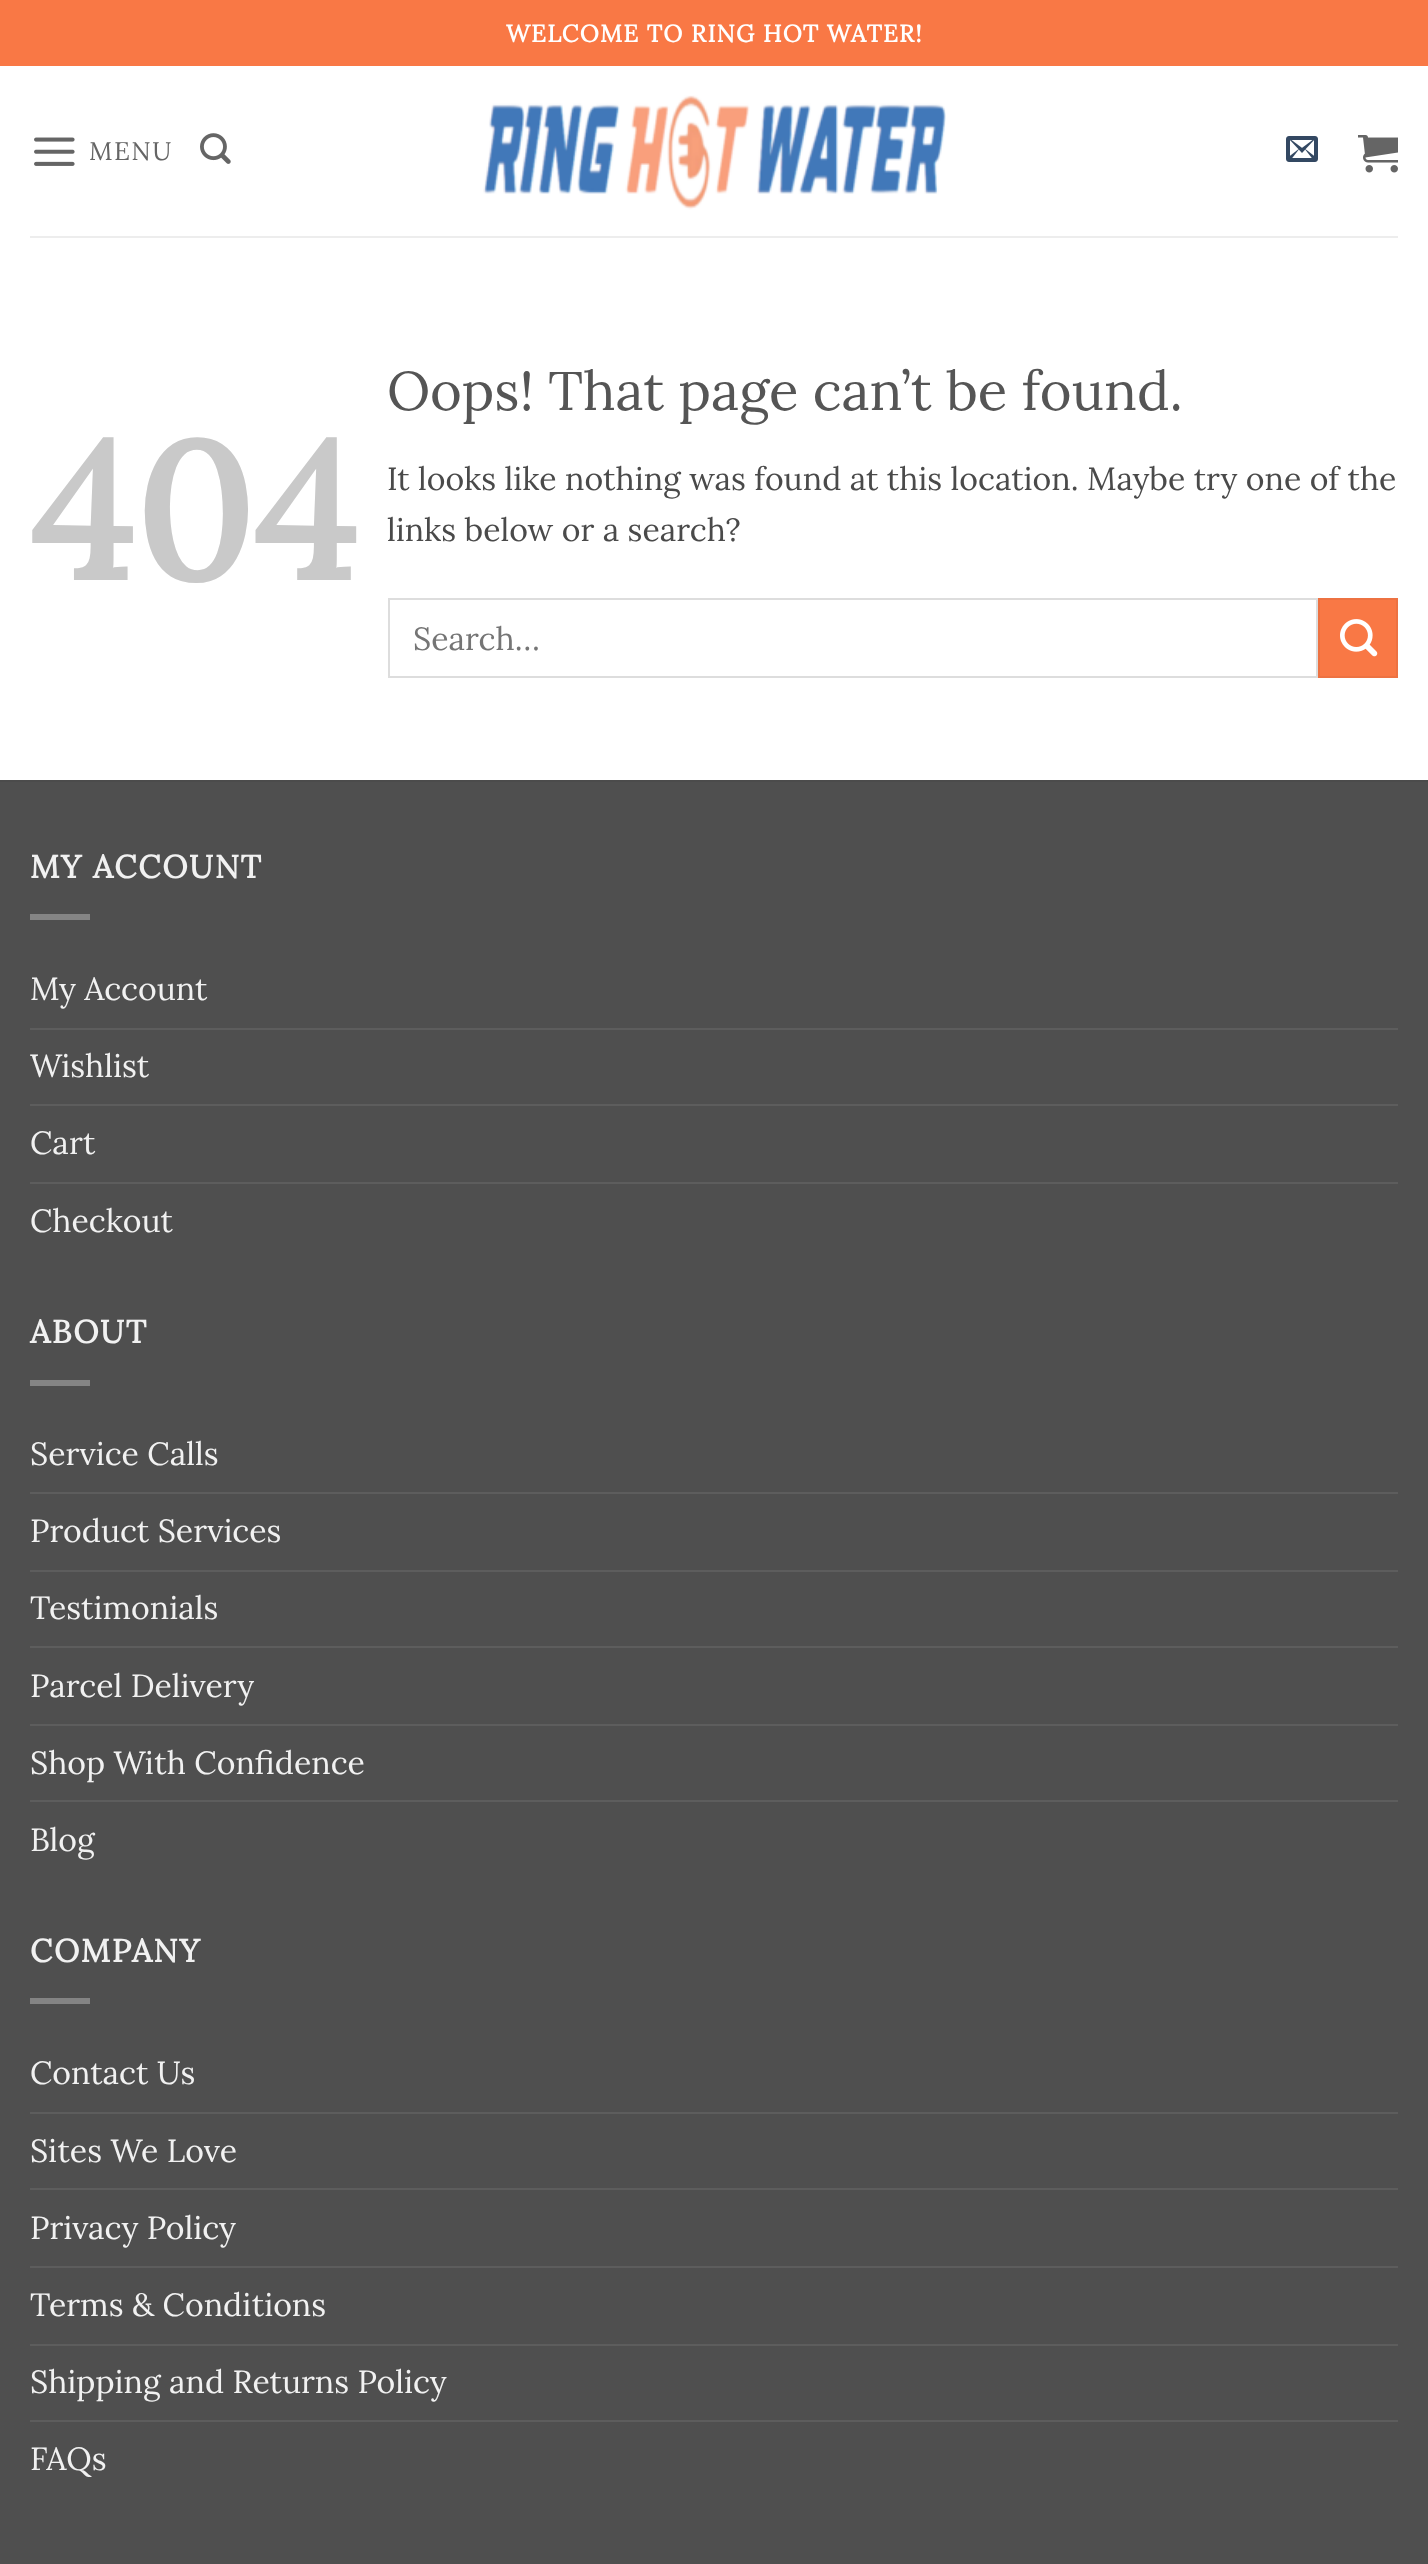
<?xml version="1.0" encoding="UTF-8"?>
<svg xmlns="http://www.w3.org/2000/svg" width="1428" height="2564">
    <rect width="100%" height="100%" fill="#FFFFFF"/>
    <rect x="0" y="0" width="1428" height="66" fill="#F97845"/>
    <text x="506" y="42" font-family="Lora" font-size="24" font-weight="700" letter-spacing="1.2" fill="#FFFFFF">WELCOME TO RING HOT WATER!</text>
    <image x="34" y="137" width="41" height="29" href="img_01.png"/>
    <text x="89" y="160" font-family="Lora" font-size="25.5" letter-spacing="1.5" fill="#656565">MENU</text>
    <image x="200" y="133" width="31" height="31" href="img_02.png"/>
    <image x="483" y="95" width="463" height="115" href="img_03.png"/>
    <image x="1286" y="136" width="32" height="26" href="img_04.png"/>
    <image x="1358" y="135" width="40" height="38" href="img_05.png"/>
    <rect x="30" y="236" width="1368" height="2" fill="#EDEDED"/>
    <text x="30" y="580" font-family="Lora" font-size="192" font-weight="700" fill="#C9C9C9">404</text>
    <text x="387" y="410" font-family="Lora" font-size="54.4" fill="#555555">Oops! That page can’t be found.</text>
    <text font-family="Lora" font-size="32" fill="#4A4A4A">
        <tspan x="387" y="490">It looks like nothing was found at this location. Maybe try one of the</tspan>
        <tspan x="387" y="541">links below or a search?</tspan>
    </text>
    <rect x="389" y="599" width="928" height="78" fill="none" stroke="#DDDDDD" stroke-width="2"/>
    <text x="413" y="650" font-family="Lora" font-size="32" fill="#757575">Search…</text>
    <rect x="1319" y="599" width="78" height="78" fill="#F97845" stroke="#ED7242" stroke-width="2"/>
    <image x="1340" y="619" width="38" height="38" href="img_06.png"/>
    <rect x="0" y="782" width="1428" height="1782" fill="#4F4F4F"/>
    <rect x="0" y="780" width="1428" height="2" fill="#4B4B4B"/>
    <text x="30" y="878" font-family="Lora" font-size="32" font-weight="700" letter-spacing="1.6" fill="#F1F1F1">MY ACCOUNT</text>
    <rect x="30" y="914" width="60" height="6" fill="#848484"/>
    <text x="30" y="1000" font-family="Lora" font-size="32" fill="#F1F1F1">My Account</text>
    <rect x="30" y="1028" width="1368" height="2" fill="#5D5D5D"/>
    <text x="30" y="1077" font-family="Lora" font-size="32" fill="#F1F1F1">Wishlist</text>
    <rect x="30" y="1104" width="1368" height="2" fill="#5D5D5D"/>
    <text x="30" y="1154" font-family="Lora" font-size="32" fill="#F1F1F1">Cart</text>
    <rect x="30" y="1182" width="1368" height="2" fill="#5D5D5D"/>
    <text x="30" y="1232" font-family="Lora" font-size="32" fill="#F1F1F1">Checkout</text>
    <text x="30" y="1343" font-family="Lora" font-size="32" font-weight="700" letter-spacing="1.6" fill="#F1F1F1">ABOUT</text>
    <rect x="30" y="1380" width="60" height="6" fill="#848484"/>
    <text x="30" y="1465" font-family="Lora" font-size="32" fill="#F1F1F1">Service Calls</text>
    <rect x="30" y="1492" width="1368" height="2" fill="#5D5D5D"/>
    <text x="30" y="1542" font-family="Lora" font-size="32" fill="#F1F1F1">Product Services</text>
    <rect x="30" y="1570" width="1368" height="2" fill="#5D5D5D"/>
    <text x="30" y="1619" font-family="Lora" font-size="32" fill="#F1F1F1">Testimonials</text>
    <rect x="30" y="1646" width="1368" height="2" fill="#5D5D5D"/>
    <text x="30" y="1697" font-family="Lora" font-size="32" fill="#F1F1F1">Parcel Delivery</text>
    <rect x="30" y="1724" width="1368" height="2" fill="#5D5D5D"/>
    <text x="30" y="1774" font-family="Lora" font-size="32" fill="#F1F1F1">Shop With Confidence</text>
    <rect x="30" y="1800" width="1368" height="2" fill="#5D5D5D"/>
    <text x="30" y="1851" font-family="Lora" font-size="32" fill="#F1F1F1">Blog</text>
    <text x="30" y="1962" font-family="Lora" font-size="32" font-weight="700" letter-spacing="1.6" fill="#F1F1F1">COMPANY</text>
    <rect x="30" y="1998" width="60" height="6" fill="#848484"/>
    <text x="30" y="2084" font-family="Lora" font-size="32" fill="#F1F1F1">Contact Us</text>
    <rect x="30" y="2112" width="1368" height="2" fill="#5D5D5D"/>
    <text x="30" y="2162" font-family="Lora" font-size="32" fill="#F1F1F1">Sites We Love</text>
    <rect x="30" y="2188" width="1368" height="2" fill="#5D5D5D"/>
    <text x="30" y="2239" font-family="Lora" font-size="32" fill="#F1F1F1">Privacy Policy</text>
    <rect x="30" y="2266" width="1368" height="2" fill="#5D5D5D"/>
    <text x="30" y="2316" font-family="Lora" font-size="32" fill="#F1F1F1">Terms &amp; Conditions</text>
    <rect x="30" y="2344" width="1368" height="2" fill="#5D5D5D"/>
    <text x="30" y="2393" font-family="Lora" font-size="32" fill="#F1F1F1">Shipping and Returns Policy</text>
    <rect x="30" y="2420" width="1368" height="2" fill="#5D5D5D"/>
    <text x="30" y="2470" font-family="Lora" font-size="32" fill="#F1F1F1">FAQs</text>
</svg>
